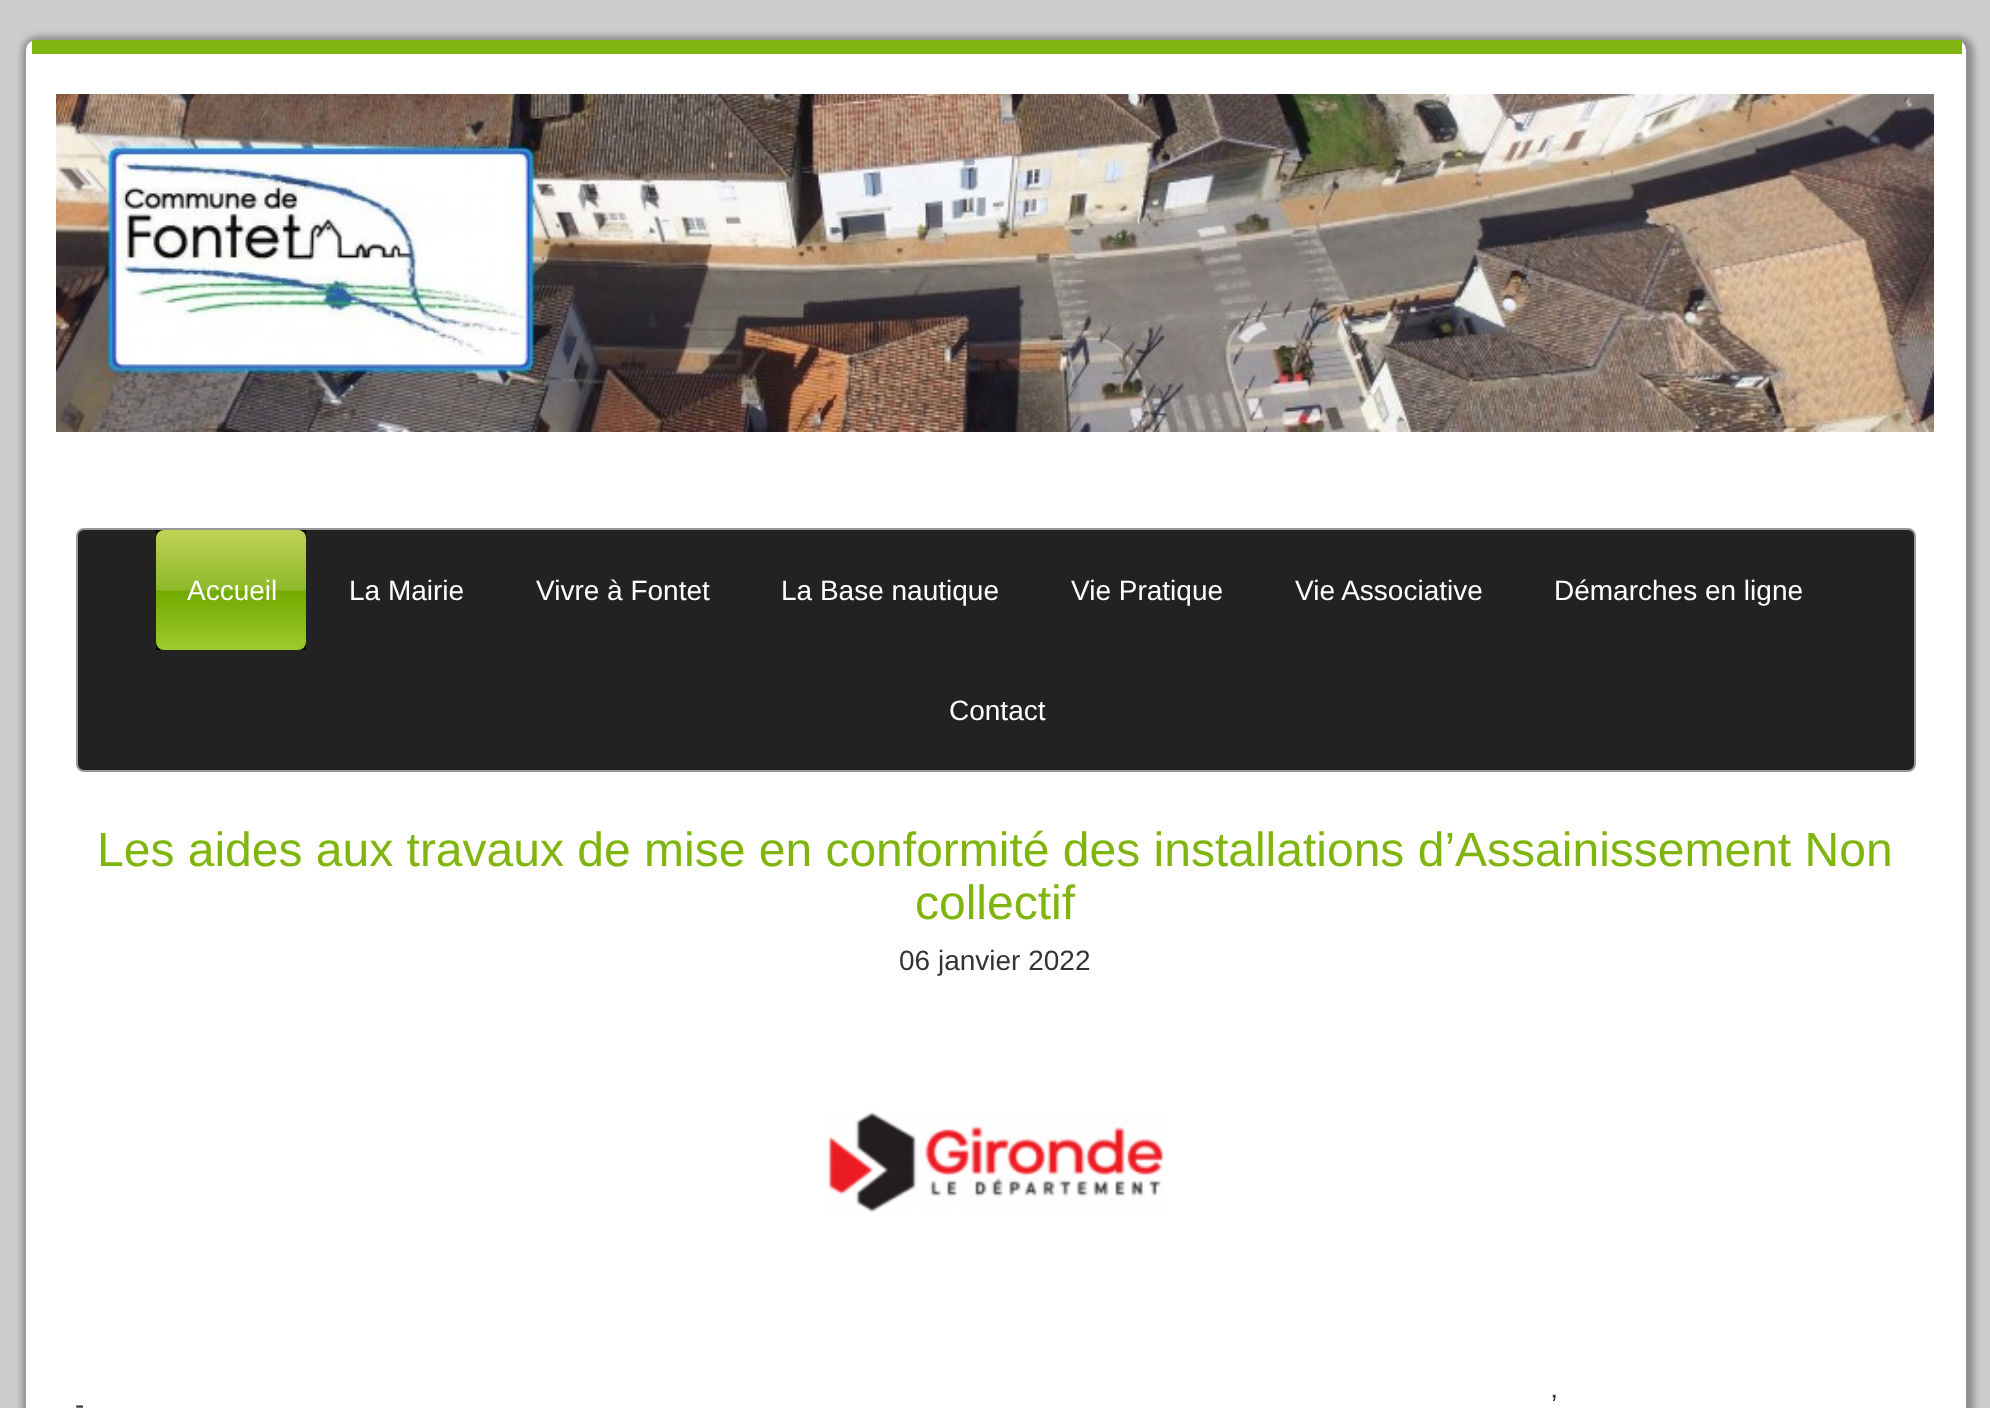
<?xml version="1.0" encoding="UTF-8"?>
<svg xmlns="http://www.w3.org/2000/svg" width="1990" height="1408">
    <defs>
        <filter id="blur1" x="-50%" y="-200%" width="200%" height="500%"><feGaussianBlur stdDeviation="3"/></filter>
        <linearGradient id="g1" gradientUnits="userSpaceOnUse" x1="231" y1="530" x2="231" y2="650"><stop offset="0" stop-color="#BFD255"/><stop offset="0.5" stop-color="#8EB92A"/><stop offset="0.51" stop-color="#72AA00"/><stop offset="1" stop-color="#9ECB2D"/></linearGradient>
    </defs>
    <rect width="100%" height="100%" fill="#CCCCCC"/>
    <rect x="22" y="36" width="1952" height="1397" rx="16" fill="#000000" fill-opacity="0.3" filter="url(#blur1)"/>
    <rect x="26" y="40" width="1940" height="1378" rx="10" fill="#FFFFFF"/>
    <rect x="32" y="40" width="1930" height="14" fill="#80B50F"/>
    <image x="56" y="94" width="1878" height="338" href="img_01.png"/>
    <rect x="77" y="529" width="1838" height="242" rx="7" fill="#222222" stroke="#999999" stroke-width="2"/>
    <rect x="156" y="530" width="150" height="120" fill="#000000"/>
    <rect x="156" y="530" width="150" height="120" rx="8" fill="url(#g1)"/>
    <text x="187" y="600" font-family="Liberation Sans" font-size="28" fill="#FFFFFF">Accueil</text>
    <text x="349" y="600" font-family="Liberation Sans" font-size="28" fill="#FFFFFF">La Mairie</text>
    <text x="536" y="600" font-family="Liberation Sans" font-size="28" fill="#FFFFFF">Vivre à Fontet</text>
    <text x="781" y="600" font-family="Liberation Sans" font-size="28" fill="#FFFFFF">La Base nautique</text>
    <text x="1071" y="600" font-family="Liberation Sans" font-size="28" fill="#FFFFFF">Vie Pratique</text>
    <text x="1295" y="600" font-family="Liberation Sans" font-size="28" fill="#FFFFFF">Vie Associative</text>
    <text x="1554" y="600" font-family="Liberation Sans" font-size="28" fill="#FFFFFF">Démarches en ligne</text>
    <text x="949" y="720" font-family="Liberation Sans" font-size="28" fill="#FFFFFF">Contact</text>
    <text x="97" y="866" font-family="Liberation Sans" font-size="48" fill="#80B50F">Les aides aux travaux de mise en conformité des installations d’Assainissement Non</text>
    <text x="915" y="919" font-family="Liberation Sans" font-size="48" fill="#80B50F">collectif</text>
    <text x="899" y="970" font-family="Liberation Sans" font-size="28" fill="#333333">06 janvier 2022</text>
    <image x="827" y="1111" width="338" height="102" href="img_02.png"/>
    <text x="1551" y="1414" word-spacing="1" font-family="Liberation Sans" font-size="28" fill="#333333">’</text>
    <text x="75" y="1414" word-spacing="1" font-family="Liberation Sans" font-size="28" fill="#333333">-</text>
</svg>
